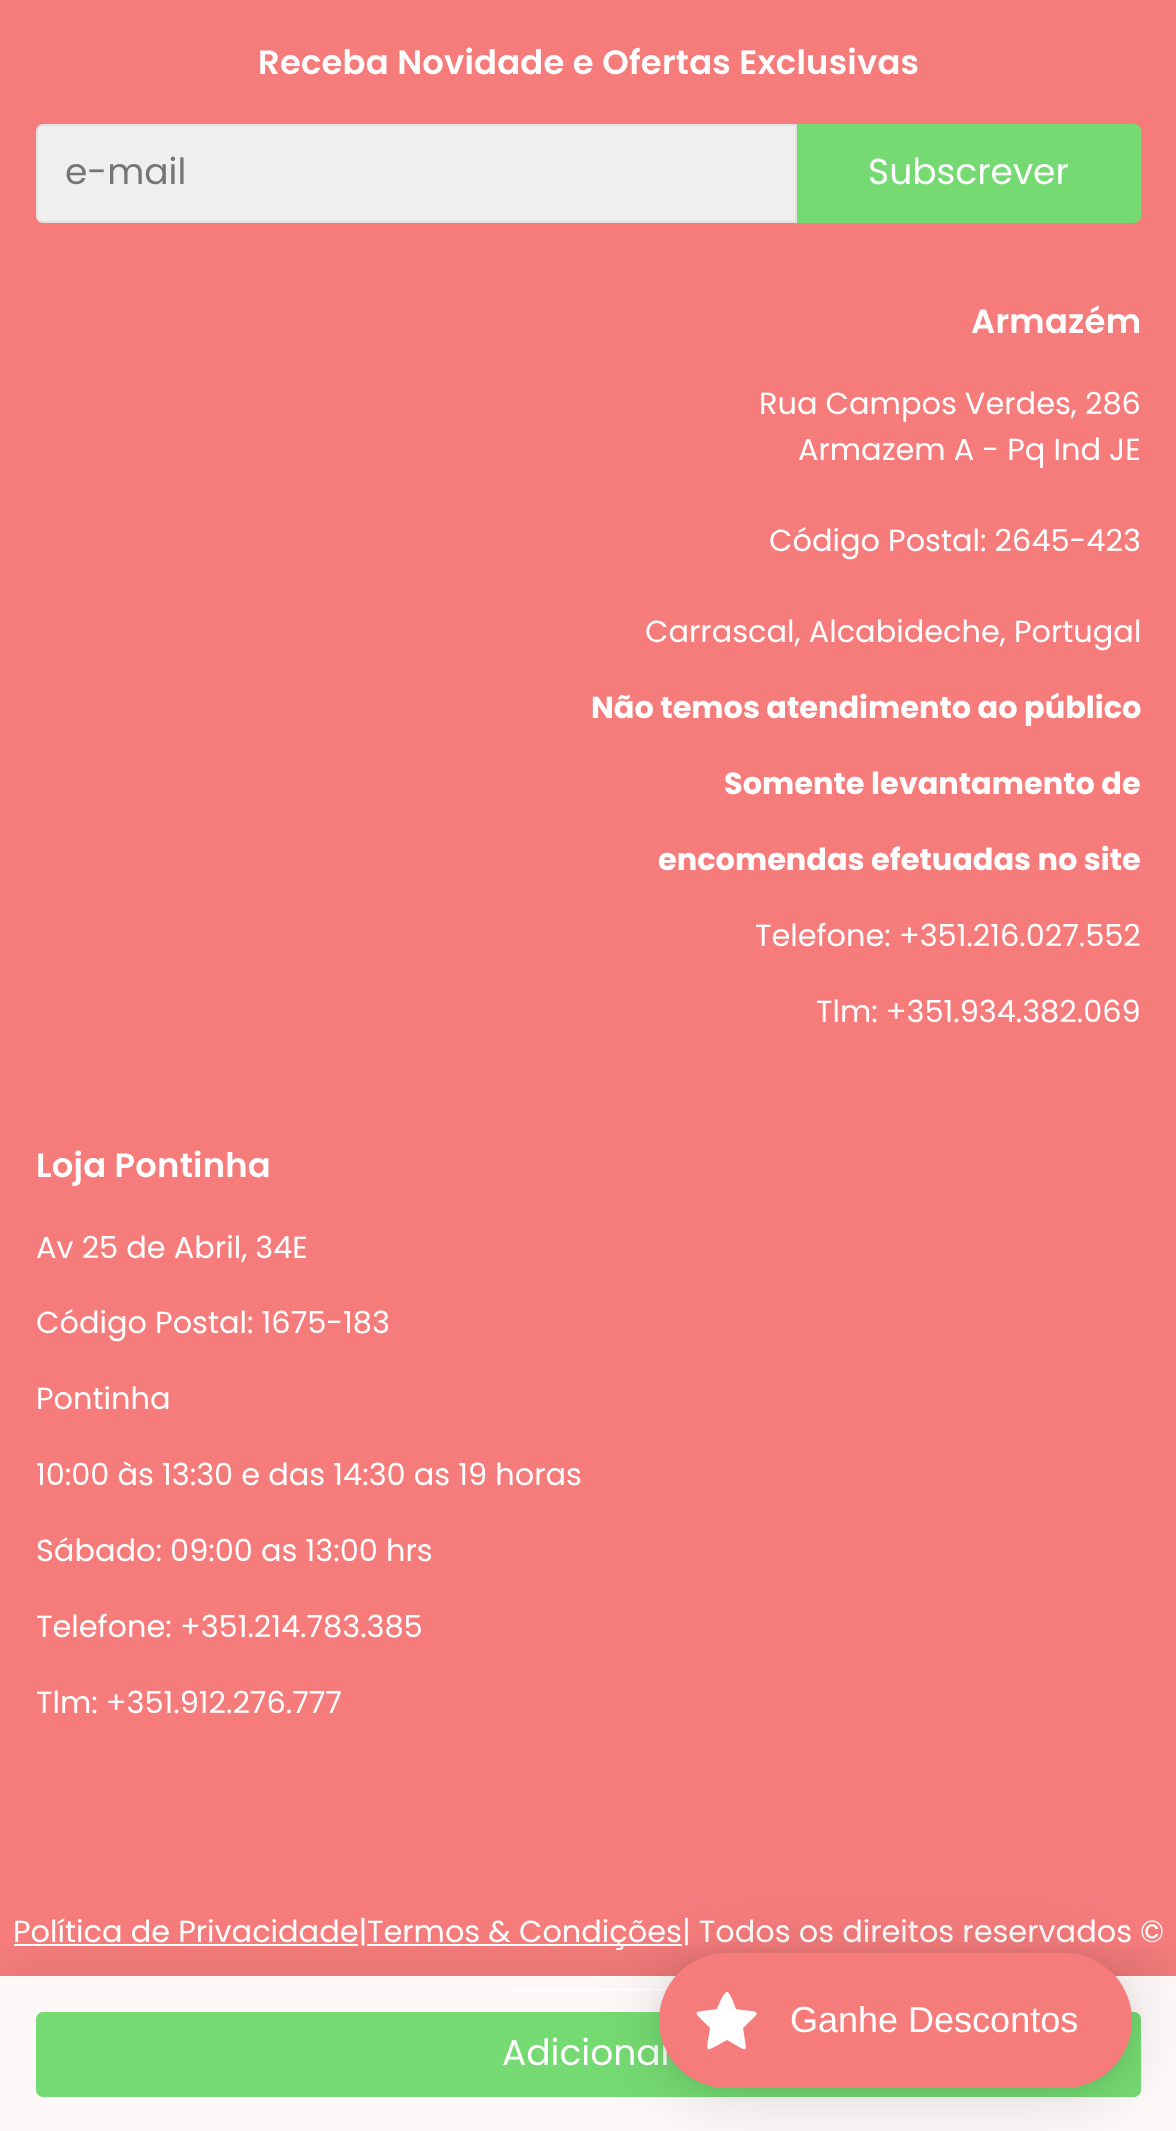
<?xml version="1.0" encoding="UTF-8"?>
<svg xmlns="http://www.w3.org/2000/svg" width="1176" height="2131">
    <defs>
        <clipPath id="clip1"><rect x="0" y="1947" width="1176" height="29"/></clipPath>
        <filter id="blur1" x="-50%" y="-200%" width="200%" height="500%"><feGaussianBlur stdDeviation="34"/></filter>
        <filter id="blur2" x="-50%" y="-200%" width="200%" height="500%"><feGaussianBlur stdDeviation="7"/></filter>
    </defs>
    <rect width="100%" height="100%" fill="#F67C7C"/>
    <text x="258" y="74" font-family="Poppins" font-size="33.75" font-weight="600" letter-spacing="0.25" fill="#FFFFFF">Receba Novidade e Ofertas Exclusivas</text>
    <path d="M 43 125 H 796 V 222 H 43 C 39.5 222 37 219.5 37 216 V 131 C 37 127.5 39.5 125 43 125 Z" fill="#EFEFEF" stroke="#E2E2E2" stroke-width="2"/>
    <text x="65" y="184" font-family="Poppins" font-size="36" fill="#757575">e-mail</text>
    <path d="M 797 124 H 1134 C 1138 124 1141 127 1141 131 V 216 C 1141 220 1138 223 1134 223 H 797 Z" fill="#75DA72"/>
    <text x="868" y="184" font-family="Poppins" font-size="36" fill="#FFFFFF">Subscrever</text>
    <text x="971" y="333" font-family="Poppins" font-size="33.75" font-weight="600" letter-spacing="0.25" fill="#FFFFFF">Armazém</text>
    <text x="759" y="414" font-family="Poppins" font-size="30.4" fill="#FFFFFF">Rua Campos Verdes, 286</text>
    <text x="798" y="460" font-family="Poppins" font-size="30.4" fill="#FFFFFF">Armazem A - Pq Ind JE</text>
    <text x="769" y="551" font-family="Poppins" font-size="30.4" fill="#FFFFFF">Código Postal: 2645-423</text>
    <text x="645" y="642" font-family="Poppins" font-size="30.4" fill="#FFFFFF">Carrascal, Alcabideche, Portugal</text>
    <text x="591" y="718" font-family="Poppins" font-size="30.4" font-weight="700" fill="#FFFFFF">Não temos atendimento ao público</text>
    <text x="724" y="794" font-family="Poppins" font-size="30.4" font-weight="700" fill="#FFFFFF">Somente levantamento de</text>
    <text x="658" y="870" font-family="Poppins" font-size="30.4" font-weight="700" fill="#FFFFFF">encomendas efetuadas no site</text>
    <text x="755" y="946" font-family="Poppins" font-size="30.4" fill="#FFFFFF">Telefone: +351.216.027.552</text>
    <text x="816" y="1022" font-family="Poppins" font-size="30.4" fill="#FFFFFF">Tlm: +351.934.382.069</text>
    <text x="36" y="1177" font-family="Poppins" font-size="33.75" font-weight="600" letter-spacing="0.25" fill="#FFFFFF">Loja Pontinha</text>
    <text x="36" y="1258" font-family="Poppins" font-size="30.4" fill="#FFFFFF">Av 25 de Abril, 34E</text>
    <text x="36" y="1333" font-family="Poppins" font-size="30.4" fill="#FFFFFF">Código Postal: 1675-183</text>
    <text x="36" y="1409" font-family="Poppins" font-size="30.4" fill="#FFFFFF">Pontinha</text>
    <text x="36" y="1485" font-family="Poppins" font-size="30.4" fill="#FFFFFF">10:00 às 13:30 e das 14:30 as 19 horas</text>
    <text x="36" y="1561" font-family="Poppins" font-size="30.4" fill="#FFFFFF">Sábado: 09:00 as 13:00 hrs</text>
    <text x="36" y="1637" font-family="Poppins" font-size="30.4" fill="#FFFFFF">Telefone: +351.214.783.385</text>
    <text x="36" y="1713" font-family="Poppins" font-size="30.4" fill="#FFFFFF">Tlm: +351.912.276.777</text>
    <rect x="14" y="1944" width="344" height="2" fill="#FFFFFF"/>
    <text x="13" y="1942" font-family="Poppins" font-size="30.4" fill="#FFFFFF">Política de Privacidade|</text>
    <rect x="367" y="1944" width="315" height="2" fill="#FFFFFF"/>
    <text x="367" y="1942" font-family="Poppins" font-size="30.4" fill="#FFFFFF">Termos &amp; Condições| Todos os direitos reservados ©</text>
    <rect x="511" y="1989" width="156" height="2" fill="#FFFFFF"/>
    <g clip-path="url(#clip1)">
        <rect x="0" y="1976" width="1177" height="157" fill="#000000" fill-opacity="0.1" filter="url(#blur1)"/>
    </g>
    <rect x="0" y="1976" width="1176" height="155" fill="#FFFFFF" fill-opacity="0.95"/>
    <rect x="36" y="2012" width="1105" height="85" rx="7" fill="#75DA72"/>
    <text x="502" y="2065" font-family="Poppins" font-size="36" fill="#FFFFFF">Adicionar</text>
    <rect x="659" y="1958" width="473" height="135" rx="67.5" fill="#000000" fill-opacity="0.15" filter="url(#blur1)"/>
    <rect x="659" y="1955" width="473" height="135" rx="67.5" fill="#000000" fill-opacity="0.05" filter="url(#blur2)"/>
    <rect x="659" y="1953" width="473" height="135" rx="67.5" fill="#F67C7C"/>
    <path d="M 727 1992 C 724 1992 718 2006 717 2009 C 691 2013 691 2009 710 2028 C 706 2055 703 2053 727 2040 C 750 2053 747 2055 743 2028 C 762 2009 763 2013 736 2009 C 735 2006 730 1992 727 1992 Z" fill="#FFFFFF"/>
    <text x="790" y="2032" font-family="Liberation Sans" font-size="36" fill="#FFFFFF">Ganhe Descontos</text>
</svg>
